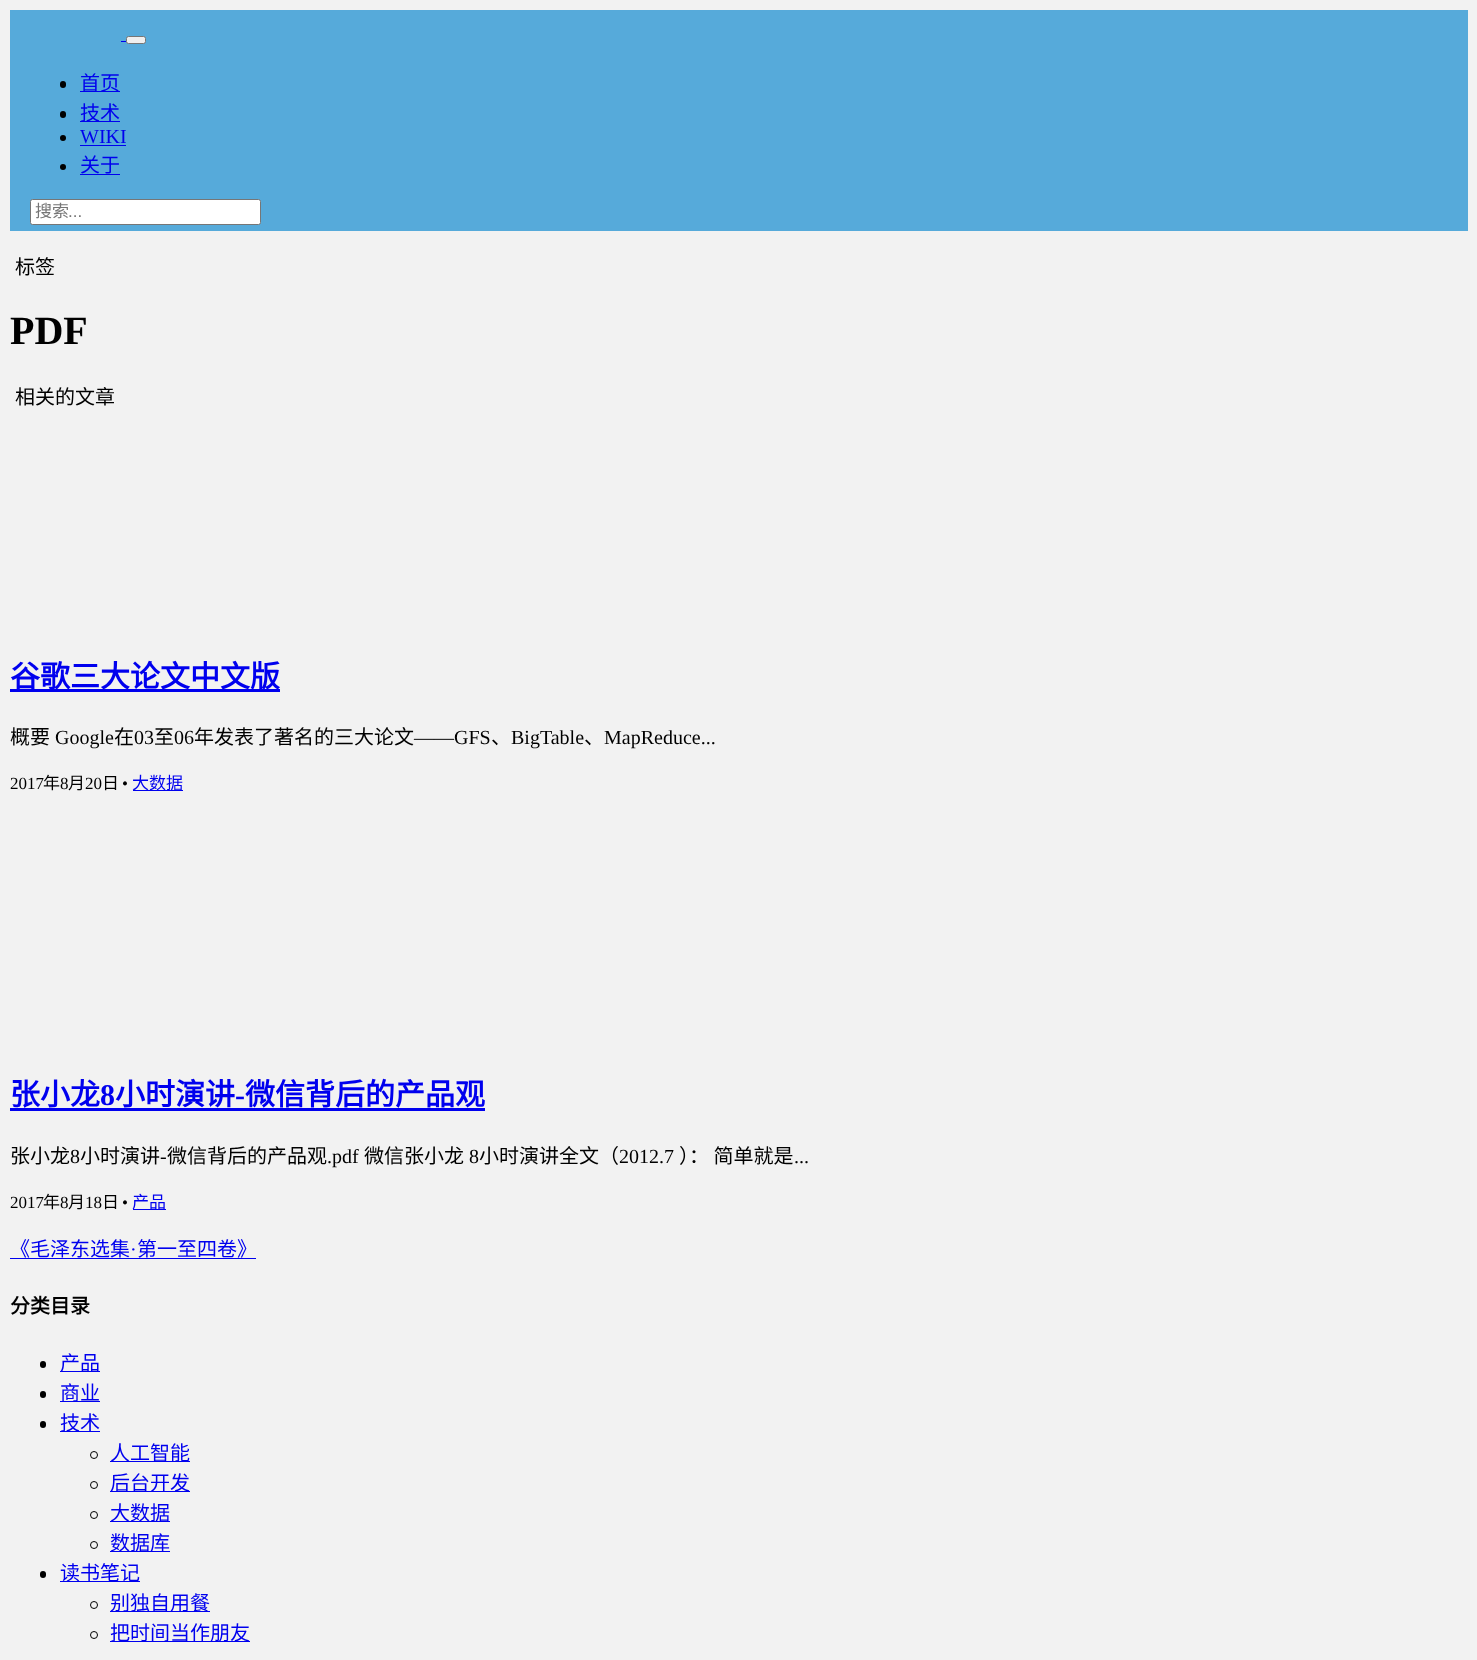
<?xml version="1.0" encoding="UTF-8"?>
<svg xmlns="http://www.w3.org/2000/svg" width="1477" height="1660">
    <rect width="100%" height="100%" fill="#F2F2F2"/>
    <rect x="10" y="10" width="1458" height="221" fill="#56AADA"/>
    <rect x="121" y="41" width="5" height="1" fill="#0000EE"/>
    <rect x="126.5" y="36.5" width="19" height="7" rx="2" fill="#EFEFEF" stroke="#767676"/>
    <rect x="60" y="81" width="6" height="7" rx="3" fill="#000000"/>
    <rect x="80" y="91" width="40" height="1" fill="#0000EE"/>
    <text x="80" y="90" font-family="Noto Sans CJK SC" font-size="20" fill="#0000EE">首页</text>
    <rect x="60" y="111" width="6" height="7" rx="3" fill="#000000"/>
    <rect x="80" y="121" width="40" height="1" fill="#0000EE"/>
    <text x="80" y="120" font-family="Noto Sans CJK SC" font-size="20" fill="#0000EE">技术</text>
    <circle cx="63" cy="138" r="3" fill="#000000"/>
    <text x="80" y="143" font-family="Liberation Serif" font-size="20" fill="#0000EE">WIKI</text>
    <rect x="80" y="145" width="46" height="1" fill="#0000EE"/>
    <circle cx="63" cy="167" r="3" fill="#000000"/>
    <text x="80" y="172" font-family="Noto Sans CJK SC" font-size="20" fill="#0000EE">关于</text>
    <rect x="80" y="174" width="40" height="1" fill="#0000EE"/>
    <rect x="30.5" y="199.5" width="230" height="25" rx="2" fill="#FFFFFF" stroke="#767676"/>
    <text x="35" y="217" font-family="Noto Sans CJK SC" font-size="17" fill="#757575">搜索</text>
    <text x="68" y="217" font-family="Liberation Sans" font-size="17" fill="#757575">...</text>
    <text x="15" y="274" font-family="Noto Sans CJK SC" font-size="20" fill="#000000">标签</text>
    <text x="10" y="344" font-family="Liberation Serif" font-size="40" font-weight="700" fill="#000000">PDF</text>
    <text x="15" y="404" font-family="Noto Sans CJK SC" font-size="20" fill="#000000">相关的文章</text>
    <rect x="10" y="689" width="270" height="3" fill="#0000EE"/>
    <text x="10" y="687" font-family="Noto Sans CJK SC" font-size="30" font-weight="700" fill="#0000EE">谷歌三大论文中文版</text>
    <text x="10" y="744" font-family="Noto Sans CJK SC" font-size="20" fill="#000000">概要</text>
    <text x="55" y="744" font-family="Liberation Serif" font-size="20" fill="#000000">Google</text>
    <text x="114" y="744" font-family="Noto Sans CJK SC" font-size="20" fill="#000000">在</text>
    <text x="134" y="744" font-family="Liberation Serif" font-size="20" fill="#000000">03</text>
    <text x="154" y="744" font-family="Noto Sans CJK SC" font-size="20" fill="#000000">至</text>
    <text x="174" y="744" font-family="Liberation Serif" font-size="20" fill="#000000">06</text>
    <text x="194" y="744" font-family="Noto Sans CJK SC" font-size="20" fill="#000000">年发表了著名的三大论文</text>
    <text x="414" y="744" font-family="Liberation Serif" font-size="20" fill="#000000">——GFS</text>
    <text x="491" y="744" font-family="Noto Sans CJK SC" font-size="20" fill="#000000">、</text>
    <text x="511" y="744" font-family="Liberation Serif" font-size="20" fill="#000000">BigTable</text>
    <text x="584" y="744" font-family="Noto Sans CJK SC" font-size="20" fill="#000000">、</text>
    <text x="604" y="744" font-family="Liberation Serif" font-size="20" fill="#000000">MapReduce...</text>
    <text x="10" y="789" font-family="Liberation Serif" font-size="17" fill="#000000">2017</text>
    <text x="43" y="789" font-family="Noto Sans CJK SC" font-size="17" fill="#000000">年</text>
    <text x="60" y="789" font-family="Liberation Serif" font-size="17" fill="#000000">8</text>
    <text x="68" y="789" font-family="Noto Sans CJK SC" font-size="17" fill="#000000">月</text>
    <text x="85" y="789" font-family="Liberation Serif" font-size="17" fill="#000000">20</text>
    <text x="102" y="789" font-family="Noto Sans CJK SC" font-size="17" fill="#000000">日</text>
    <text x="122" y="789" font-family="Liberation Serif" font-size="17" fill="#000000">•</text>
    <rect x="133" y="790" width="50" height="1" fill="#0000EE"/>
    <text x="132" y="789" font-family="Noto Sans CJK SC" font-size="17" fill="#0000EE">大数据</text>
    <text x="10" y="1105" font-family="Noto Sans CJK SC" font-size="30" font-weight="700" fill="#0000EE">张小龙</text>
    <text x="100" y="1105" font-family="Liberation Serif" font-size="30" font-weight="700" fill="#0000EE">8</text>
    <text x="115" y="1105" font-family="Noto Sans CJK SC" font-size="30" font-weight="700" fill="#0000EE">小时演讲</text>
    <text x="235" y="1105" font-family="Liberation Serif" font-size="30" font-weight="700" fill="#0000EE">-</text>
    <rect x="10" y="1108" width="475" height="3" fill="#0000EE"/>
    <text x="245" y="1105" font-family="Noto Sans CJK SC" font-size="30" font-weight="700" fill="#0000EE">微信背后的产品观</text>
    <text x="10" y="1163" font-family="Noto Sans CJK SC" font-size="20" fill="#000000">张小龙</text>
    <text x="70" y="1163" font-family="Liberation Serif" font-size="20" fill="#000000">8</text>
    <text x="80" y="1163" font-family="Noto Sans CJK SC" font-size="20" fill="#000000">小时演讲</text>
    <text x="160" y="1163" font-family="Liberation Serif" font-size="20" fill="#000000">-</text>
    <text x="167" y="1163" font-family="Noto Sans CJK SC" font-size="20" fill="#000000">微信背后的产品观</text>
    <text x="327" y="1163" font-family="Liberation Serif" font-size="20" fill="#000000">.pdf</text>
    <text x="364" y="1163" font-family="Noto Sans CJK SC" font-size="20" fill="#000000">微信张小龙</text>
    <text x="469" y="1163" font-family="Liberation Serif" font-size="20" fill="#000000">8</text>
    <text x="479" y="1163" font-family="Noto Sans CJK SC" font-size="20" fill="#000000">小时演讲全文（</text>
    <text x="619" y="1163" font-family="Liberation Serif" font-size="20" fill="#000000">2012.7</text>
    <text x="679" y="1163" font-family="Noto Sans CJK SC" font-size="20" fill="#000000">）： 简单就是</text>
    <text x="794" y="1163" font-family="Liberation Serif" font-size="20" fill="#000000">...</text>
    <text x="10" y="1208" font-family="Liberation Serif" font-size="17" fill="#000000">2017</text>
    <text x="43" y="1208" font-family="Noto Sans CJK SC" font-size="17" fill="#000000">年</text>
    <text x="60" y="1208" font-family="Liberation Serif" font-size="17" fill="#000000">8</text>
    <text x="68" y="1208" font-family="Noto Sans CJK SC" font-size="17" fill="#000000">月</text>
    <text x="85" y="1208" font-family="Liberation Serif" font-size="17" fill="#000000">18</text>
    <text x="102" y="1208" font-family="Noto Sans CJK SC" font-size="17" fill="#000000">日</text>
    <text x="122" y="1208" font-family="Liberation Serif" font-size="17" fill="#000000">•</text>
    <rect x="133" y="1209" width="33" height="1" fill="#0000EE"/>
    <text x="132" y="1208" font-family="Noto Sans CJK SC" font-size="17" fill="#0000EE">产品</text>
    <text x="10" y="1256" font-family="Noto Sans CJK SC" font-size="20" fill="#0000EE">《毛泽东选集</text>
    <text x="130" y="1256" font-family="Liberation Serif" font-size="20" fill="#0000EE">·</text>
    <rect x="10" y="1258" width="246" height="1" fill="#0000EE"/>
    <text x="137" y="1256" font-family="Noto Sans CJK SC" font-size="20" fill="#0000EE">第一至四卷》</text>
    <text x="10" y="1313" font-family="Noto Sans CJK SC" font-size="20" font-weight="700" fill="#000000">分类目录</text>
    <rect x="40" y="1361" width="6" height="7" rx="3" fill="#000000"/>
    <rect x="60" y="1371" width="40" height="1" fill="#0000EE"/>
    <text x="60" y="1370" font-family="Noto Sans CJK SC" font-size="20" fill="#0000EE">产品</text>
    <rect x="40" y="1391" width="6" height="7" rx="3" fill="#000000"/>
    <rect x="60" y="1401" width="40" height="1" fill="#0000EE"/>
    <text x="60" y="1400" font-family="Noto Sans CJK SC" font-size="20" fill="#0000EE">商业</text>
    <rect x="40" y="1421" width="6" height="7" rx="3" fill="#000000"/>
    <rect x="60" y="1431" width="40" height="1" fill="#0000EE"/>
    <text x="60" y="1430" font-family="Noto Sans CJK SC" font-size="20" fill="#0000EE">技术</text>
    <circle cx="94" cy="1455" r="3.5" fill="none" stroke="#000000"/>
    <rect x="110" y="1461" width="80" height="1" fill="#0000EE"/>
    <text x="110" y="1460" font-family="Noto Sans CJK SC" font-size="20" fill="#0000EE">人工智能</text>
    <circle cx="94" cy="1485" r="3.5" fill="none" stroke="#000000"/>
    <rect x="110" y="1491" width="80" height="1" fill="#0000EE"/>
    <text x="110" y="1490" font-family="Noto Sans CJK SC" font-size="20" fill="#0000EE">后台开发</text>
    <circle cx="94" cy="1515" r="3.5" fill="none" stroke="#000000"/>
    <rect x="110" y="1521" width="60" height="1" fill="#0000EE"/>
    <text x="110" y="1520" font-family="Noto Sans CJK SC" font-size="20" fill="#0000EE">大数据</text>
    <circle cx="94" cy="1545" r="3.5" fill="none" stroke="#000000"/>
    <rect x="110" y="1551" width="60" height="1" fill="#0000EE"/>
    <text x="110" y="1550" font-family="Noto Sans CJK SC" font-size="20" fill="#0000EE">数据库</text>
    <rect x="40" y="1571" width="6" height="7" rx="3" fill="#000000"/>
    <rect x="60" y="1581" width="80" height="1" fill="#0000EE"/>
    <text x="60" y="1580" font-family="Noto Sans CJK SC" font-size="20" fill="#0000EE">读书笔记</text>
    <circle cx="94" cy="1605" r="3.5" fill="none" stroke="#000000"/>
    <rect x="110" y="1611" width="100" height="1" fill="#0000EE"/>
    <text x="110" y="1610" font-family="Noto Sans CJK SC" font-size="20" fill="#0000EE">别独自用餐</text>
    <circle cx="94" cy="1635" r="3.5" fill="none" stroke="#000000"/>
    <rect x="110" y="1641" width="140" height="1" fill="#0000EE"/>
    <text x="110" y="1640" font-family="Noto Sans CJK SC" font-size="20" fill="#0000EE">把时间当作朋友</text>
</svg>
